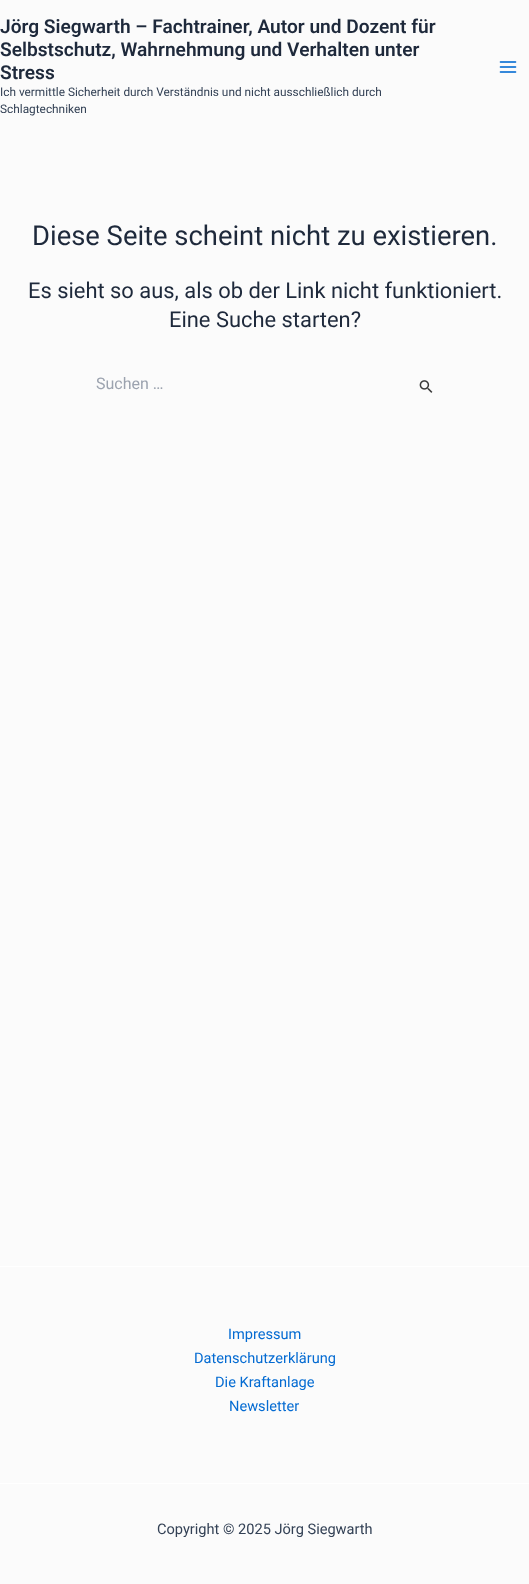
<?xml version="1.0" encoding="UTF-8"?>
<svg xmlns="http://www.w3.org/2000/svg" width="529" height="1584">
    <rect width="100%" height="100%" fill="#FBFBFB"/>
    <text font-family="Roboto" font-size="19.15" font-weight="600" fill="#1E293B">
        <tspan x="0" y="33">Jörg Siegwarth – Fachtrainer, Autor und Dozent für</tspan>
        <tspan x="0" y="56">Selbstschutz, Wahrnehmung und Verhalten unter</tspan>
        <tspan x="0" y="79">Stress</tspan>
    </text>
    <text font-family="Roboto" font-size="11.85" fill="#334155">
        <tspan x="0" y="96">Ich vermittle Sicherheit durch Verständnis und nicht ausschließlich durch</tspan>
        <tspan x="0" y="113">Schlagtechniken</tspan>
    </text>
    <image x="499" y="61" width="18" height="12" href="img_01.png"/>
    <text x="32" y="245" font-family="Roboto" font-size="27.4" fill="#1E293B">Diese Seite scheint nicht zu existieren.</text>
    <text x="28" y="298" font-family="Roboto" font-size="21.9" fill="#1E293B">Es sieht so aus, als ob der Link nicht funktioniert.</text>
    <text x="169" y="327" font-family="Roboto" font-size="21.9" fill="#1E293B">Eine Suche starten?</text>
    <text x="96" y="389" font-family="Roboto" font-size="16" fill="#9CA3AF">Suchen …</text>
    <image x="419" y="380" width="14" height="13" href="img_02.png"/>
    <rect x="0" y="1266" width="529" height="1" fill="#FFFFFF"/>
    <text x="228" y="1339" font-family="Roboto" font-size="14.6" fill="#046BD2">Impressum</text>
    <text x="194" y="1363" font-family="Roboto" font-size="14.6" fill="#046BD2">Datenschutzerklärung</text>
    <text x="215" y="1387" font-family="Roboto" font-size="14.6" fill="#046BD2">Die Kraftanlage</text>
    <text x="229" y="1411" font-family="Roboto" font-size="14.6" fill="#046BD2">Newsletter</text>
    <rect x="0" y="1483" width="529" height="1" fill="#FFFFFF"/>
    <text x="157" y="1534" font-family="Roboto" font-size="14.6" fill="#334155">Copyright © 2025 Jörg Siegwarth</text>
</svg>
